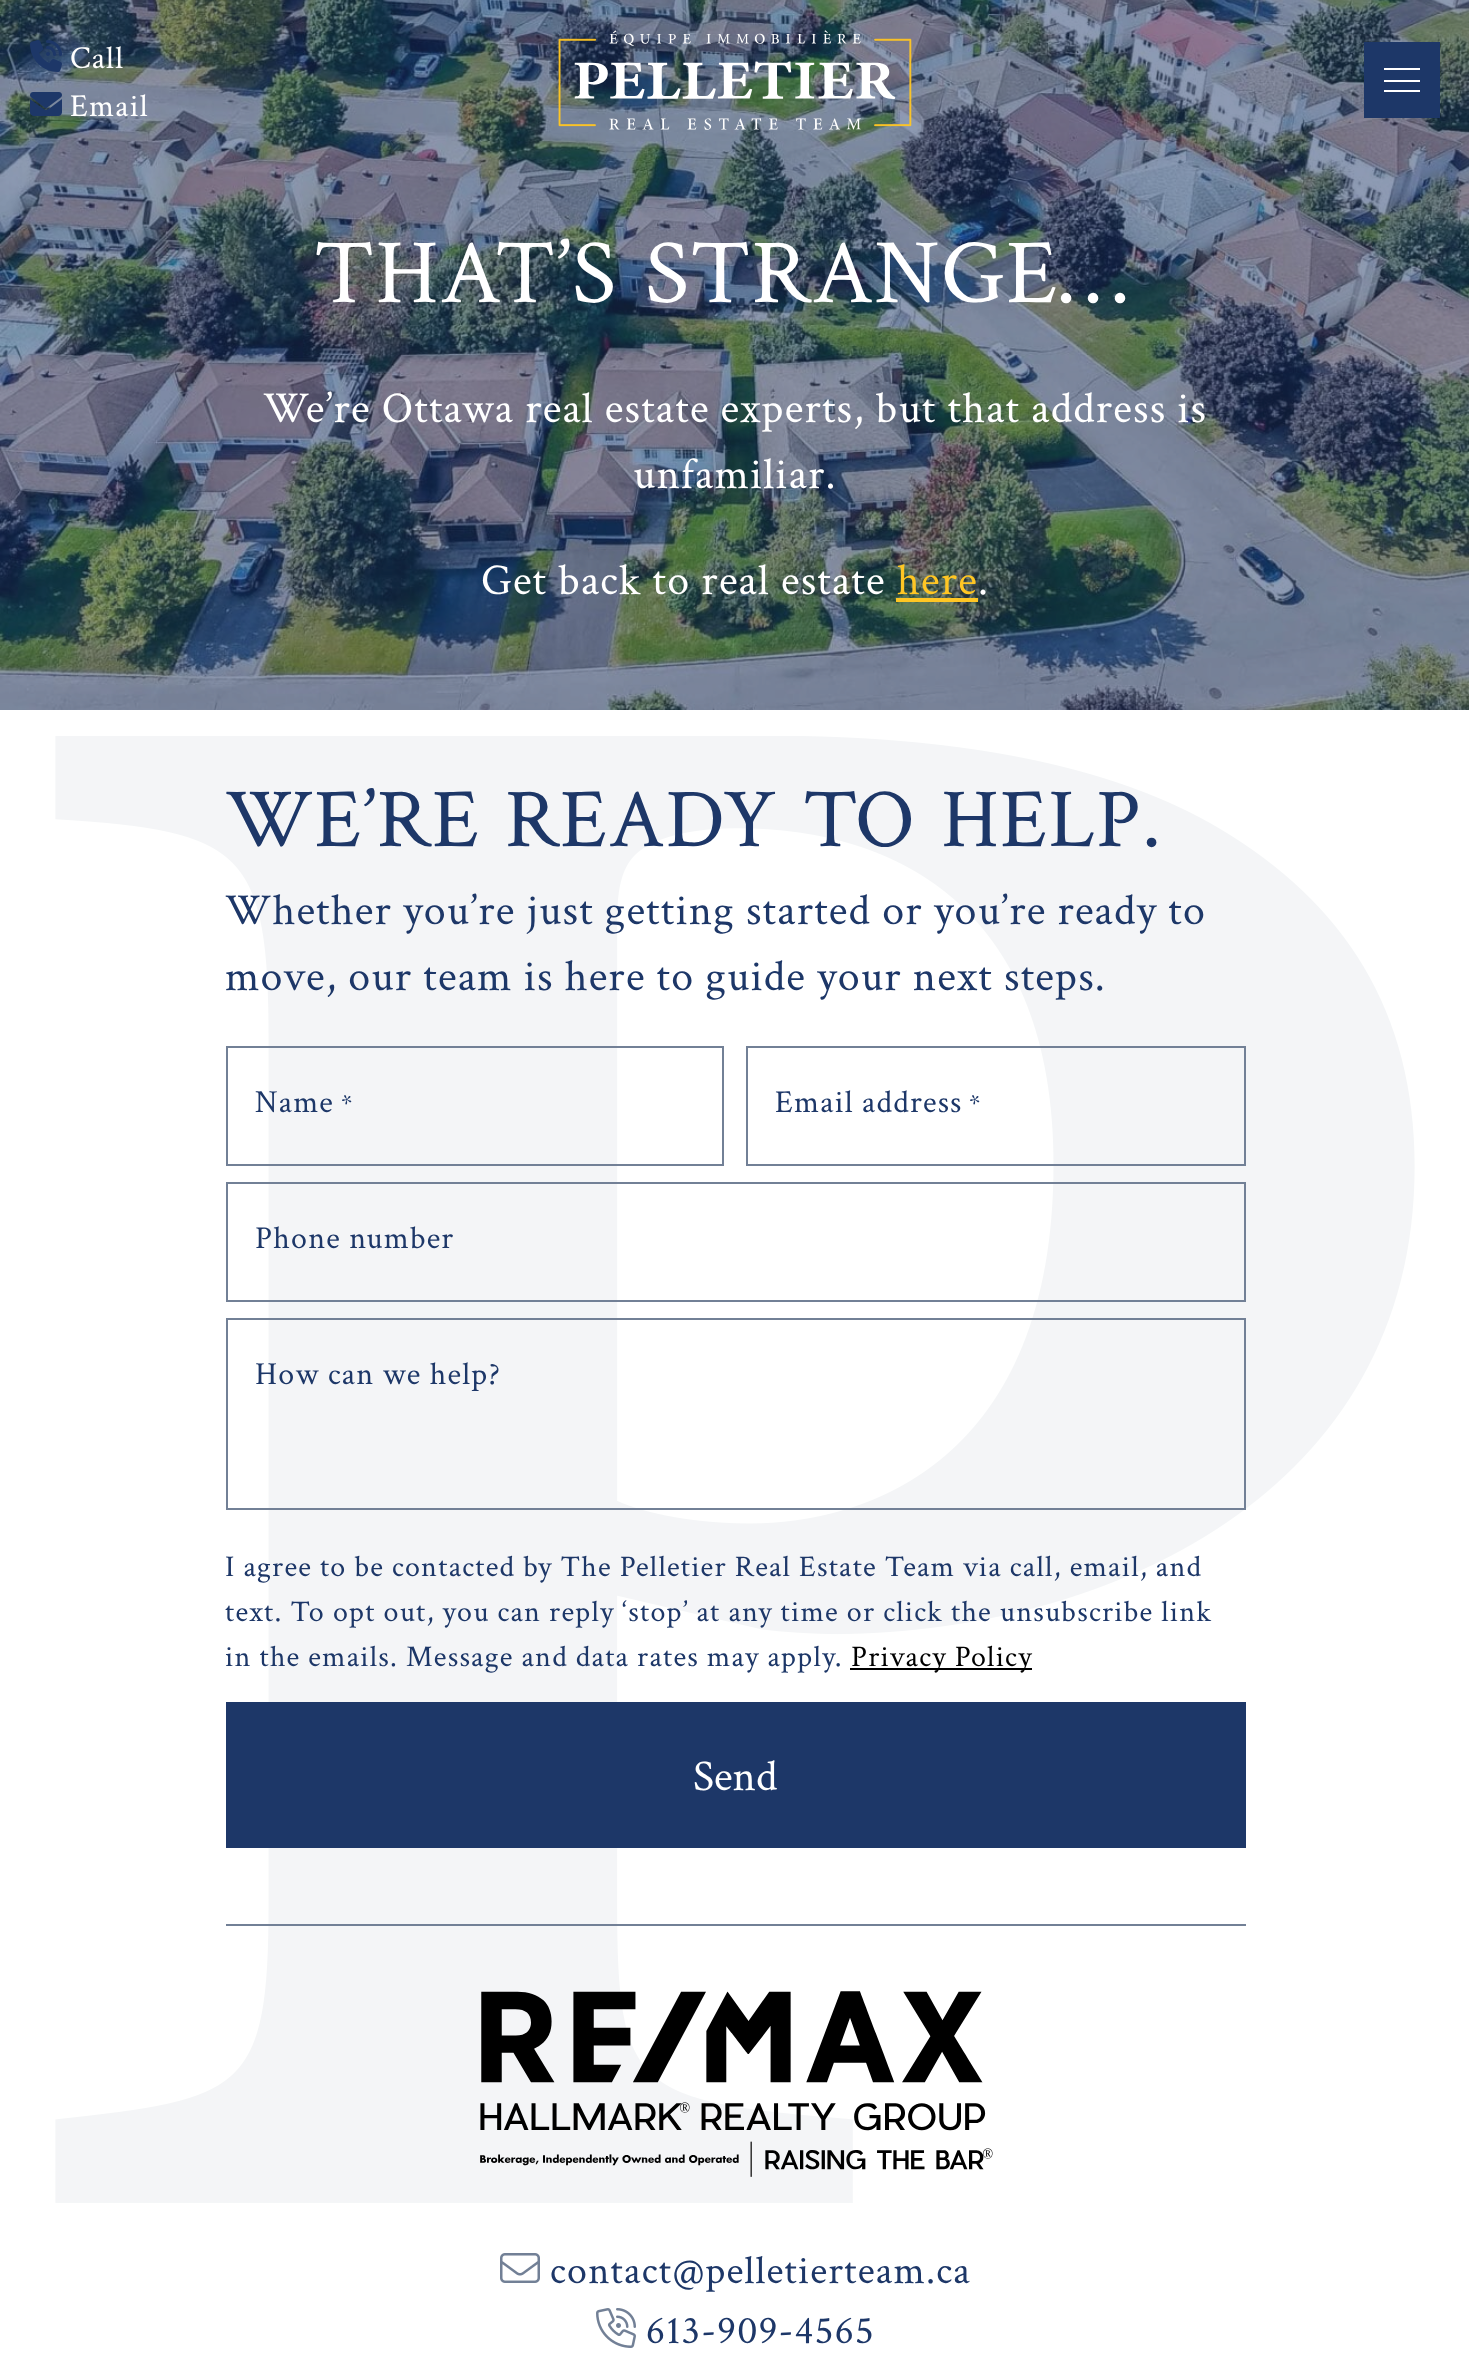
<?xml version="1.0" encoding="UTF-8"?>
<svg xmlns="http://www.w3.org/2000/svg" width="1469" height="2367">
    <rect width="100%" height="100%" fill="#FFFFFF"/>
    <image x="0" y="0" width="1469" height="710" href="img_04.png"/>
    <image x="30" y="40" width="32" height="32" href="img_01.png"/>
    <text x="70" y="68" font-family="Crimson Text" font-size="32" letter-spacing="1.2" fill="#FFFFFF">Call</text>
    <image x="30" y="92" width="32" height="24" href="img_02.png"/>
    <text x="70" y="116" font-family="Crimson Text" font-size="32" letter-spacing="1.2" fill="#FFFFFF">Email</text>
    <image x="558" y="30" width="354" height="100" href="img_03.png"/>
    <rect x="1364" y="42" width="76" height="76" fill="#1D3768"/>
    <rect x="1384" y="68" width="36" height="2" fill="#FFFFFF"/>
    <rect x="1384" y="80" width="36" height="2" fill="#FFFFFF"/>
    <rect x="1384" y="90" width="36" height="2" fill="#FFFFFF"/>
    <text x="314" y="302" font-family="Crimson Text" font-size="92" letter-spacing="1.2" fill="#FFFFFF">THA</text>
    <text x="495" y="302" font-family="Crimson Text" font-size="92" letter-spacing="1.2" fill="#FFFFFF">T’S</text>
    <text x="645" y="302" font-family="Crimson Text" font-size="92" letter-spacing="1.2" fill="#FFFFFF">STRANGE…</text>
    <text x="263" y="422" font-family="Crimson Text" font-size="44" letter-spacing="1.2" fill="#FFFFFF">We’re Ottawa real estate experts, but that address is</text>
    <text x="633" y="488" font-family="Crimson Text" font-size="44" letter-spacing="1.2" fill="#FFFFFF">unfamiliar.</text>
    <text x="481" y="594" font-family="Crimson Text" font-size="44" letter-spacing="1.2" fill="#FFFFFF">Get back to real estate</text>
    <text x="897" y="594" font-family="Crimson Text" font-size="44" letter-spacing="1.2" fill="#FFC624">here</text>
    <rect x="896" y="598" width="82" height="4" fill="#FFC624"/>
    <text x="978" y="594" font-family="Crimson Text" font-size="44" letter-spacing="1.2" fill="#FFFFFF">.</text>
    <image x="55" y="736" width="1360" height="1467" href="img_05.png"/>
    <rect x="226" y="1924" width="1020" height="2" fill="#728096"/>
    <text x="225" y="846" font-family="Crimson Text" font-size="84" letter-spacing="1.2" fill="#1D3768">WE’RE</text>
    <text x="505" y="846" font-family="Crimson Text" font-size="84" letter-spacing="1.2" fill="#1D3768">READ</text>
    <text x="723" y="846" font-family="Crimson Text" font-size="84" letter-spacing="1.2" fill="#1D3768">Y</text>
    <text x="803" y="846" font-family="Crimson Text" font-size="84" letter-spacing="1.2" fill="#1D3768">T</text>
    <text x="855" y="846" font-family="Crimson Text" font-size="84" letter-spacing="1.2" fill="#1D3768">O</text>
    <text x="941" y="846" font-family="Crimson Text" font-size="84" letter-spacing="1.2" fill="#1D3768">HELP.</text>
    <text font-family="Crimson Text" font-size="44" letter-spacing="1.2" fill="#1D3768">
        <tspan x="225" y="924">Whether you’re just getting started or you’re ready to</tspan>
        <tspan x="225" y="990">move, our team is here to guide your next steps.</tspan>
    </text>
    <rect x="227" y="1047" width="496" height="118" fill="none" stroke="#728096" stroke-width="2"/>
    <text x="255" y="1112" font-family="Crimson Text" font-size="32" letter-spacing="1.2" fill="#1D3768">Name</text>
    <text x="341" y="1112" font-family="Crimson Text" font-size="26" letter-spacing="1.2" fill="#1D3768">*</text>
    <rect x="747" y="1047" width="498" height="118" fill="none" stroke="#728096" stroke-width="2"/>
    <text x="775" y="1112" font-family="Crimson Text" font-size="32" letter-spacing="1.2" fill="#1D3768">Email address</text>
    <text x="969" y="1112" font-family="Crimson Text" font-size="26" letter-spacing="1.2" fill="#1D3768">*</text>
    <rect x="227" y="1183" width="1018" height="118" fill="none" stroke="#728096" stroke-width="2"/>
    <text x="255" y="1248" font-family="Crimson Text" font-size="32" letter-spacing="1.2" fill="#1D3768">Phone number</text>
    <rect x="227" y="1319" width="1018" height="190" fill="none" stroke="#728096" stroke-width="2"/>
    <text x="255" y="1384" font-family="Crimson Text" font-size="32" letter-spacing="1.2" fill="#1D3768">How can we help?</text>
    <text font-family="Crimson Text" font-size="30" letter-spacing="1.2" fill="#1D3768">
        <tspan x="225" y="1576">I agree to be contacted by The Pelletier Real Estate Team via call, email, and</tspan>
        <tspan x="225" y="1621">text. To opt out, you can reply ‘stop’ at any time or click the unsubscribe link</tspan>
        <tspan x="225" y="1666">in the emails. Message and data rates may apply.</tspan>
    </text>
    <rect x="850" y="1668" width="182" height="2" fill="#000000"/>
    <text x="851" y="1666" font-family="Crimson Text" font-size="30" letter-spacing="1.2" fill="#000000">Privacy Policy</text>
    <rect x="226" y="1702" width="1020" height="146" fill="#1D3768"/>
    <text x="693" y="1790" font-family="Crimson Text" font-size="44" fill="#FFFFFF">Send</text>
    <image x="480" y="1991" width="513" height="186" href="img_06.png"/>
    <image x="500" y="2253" width="40" height="30" href="img_07.png"/>
    <text x="550" y="2283" font-family="Crimson Text" font-size="40" letter-spacing="1.2" fill="#1D3768">contact@pelletierteam.ca</text>
    <image x="596" y="2308" width="40" height="40" href="img_08.png"/>
    <text x="646" y="2343" font-family="Crimson Text" font-size="40" letter-spacing="1.2" fill="#1D3768">613-909-4565</text>
</svg>
